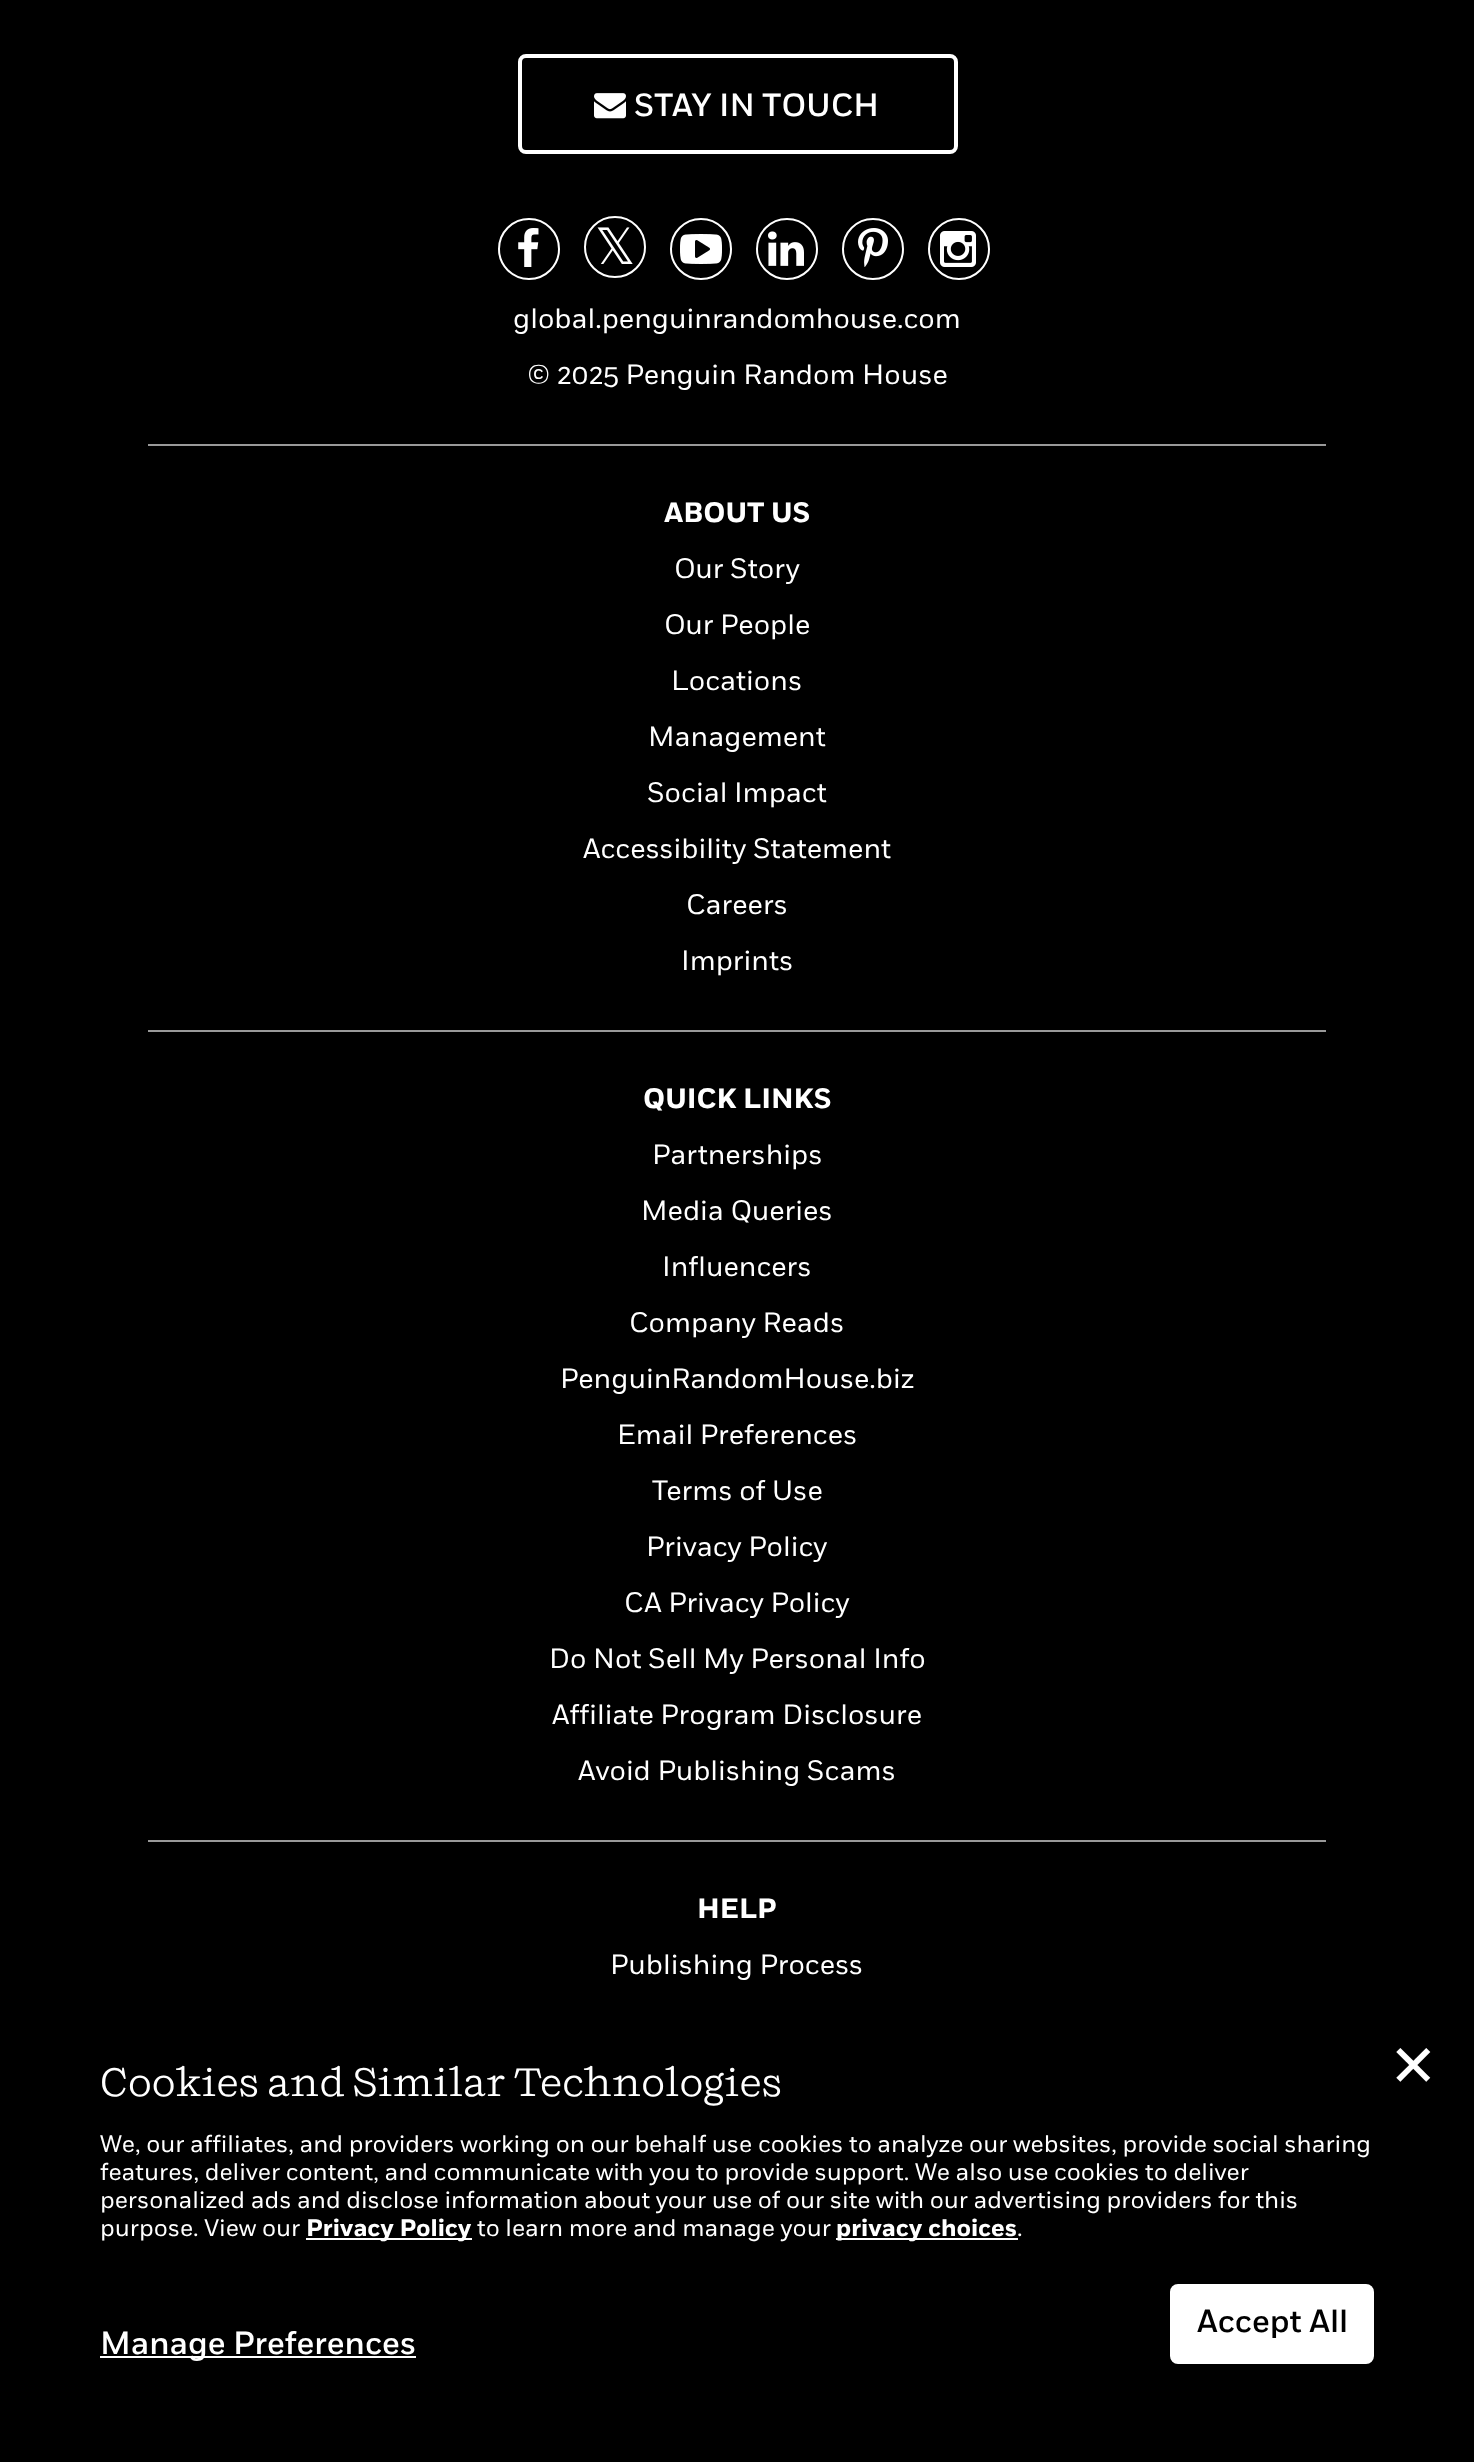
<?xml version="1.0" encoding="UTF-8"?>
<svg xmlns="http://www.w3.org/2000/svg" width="1474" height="2462">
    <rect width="100%" height="100%" fill="#000000"/>
    <rect x="520" y="56" width="436" height="96" rx="6" fill="none" stroke="#FFFFFF" stroke-width="4"/>
    <image x="594" y="93" width="32" height="26" href="img_01.png"/>
    <text x="634" y="116" font-family="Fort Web" font-size="32" font-weight="500" fill="#FFFFFF">STAY IN TOUCH</text>
    <circle cx="529" cy="249" r="30" fill="none" stroke="#FFFFFF" stroke-width="2"/>
    <image x="518" y="228" width="21" height="39" href="img_02.png"/>
    <circle cx="615" cy="247" r="30" fill="none" stroke="#FFFFFF" stroke-width="2"/>
    <text x="595" y="264" font-family="DejaVu Sans" font-size="50" fill="#FFFFFF">𝕏</text>
    <circle cx="701" cy="249" r="30" fill="none" stroke="#FFFFFF" stroke-width="2"/>
    <image x="680" y="234" width="42" height="30" href="img_03.png"/>
    <circle cx="787" cy="249" r="30" fill="none" stroke="#FFFFFF" stroke-width="2"/>
    <image x="768" y="231" width="36" height="35" href="img_04.png"/>
    <circle cx="873" cy="249" r="30" fill="none" stroke="#FFFFFF" stroke-width="2"/>
    <image x="858" y="228" width="30" height="39" href="img_05.png"/>
    <circle cx="959" cy="249" r="30" fill="none" stroke="#FFFFFF" stroke-width="2"/>
    <image x="940" y="231" width="36" height="36" href="img_06.png"/>
    <text x="513" y="328" font-family="Fort Web" font-size="28" fill="#FFFFFF">global.penguinrandomhouse.com</text>
    <text x="527" y="384" font-family="Fort Web" font-size="28" fill="#FFFFFF">© 2025 Penguin Random House</text>
    <rect x="148" y="444" width="1178" height="2" fill="#999999"/>
    <text x="664" y="522" font-family="Fort Web" font-size="28" font-weight="700" fill="#FFFFFF">ABOUT US</text>
    <text x="674" y="578" font-family="Fort Web" font-size="28" fill="#FFFFFF">Our Story</text>
    <text x="664" y="634" font-family="Fort Web" font-size="28" fill="#FFFFFF">Our People</text>
    <text x="671" y="690" font-family="Fort Web" font-size="28" fill="#FFFFFF">Locations</text>
    <text x="648" y="746" font-family="Fort Web" font-size="28" fill="#FFFFFF">Management</text>
    <text x="647" y="802" font-family="Fort Web" font-size="28" fill="#FFFFFF">Social Impact</text>
    <text x="583" y="858" font-family="Fort Web" font-size="28" fill="#FFFFFF">Accessibility Statement</text>
    <text x="686" y="914" font-family="Fort Web" font-size="28" fill="#FFFFFF">Careers</text>
    <text x="681" y="970" font-family="Fort Web" font-size="28" fill="#FFFFFF">Imprints</text>
    <rect x="148" y="1030" width="1178" height="2" fill="#999999"/>
    <text x="643" y="1108" font-family="Fort Web" font-size="28" font-weight="700" fill="#FFFFFF">QUICK LINKS</text>
    <text x="652" y="1164" font-family="Fort Web" font-size="28" fill="#FFFFFF">Partnerships</text>
    <text x="641" y="1220" font-family="Fort Web" font-size="28" fill="#FFFFFF">Media Queries</text>
    <text x="662" y="1276" font-family="Fort Web" font-size="28" fill="#FFFFFF">Influencers</text>
    <text x="629" y="1332" font-family="Fort Web" font-size="28" fill="#FFFFFF">Company Reads</text>
    <text x="560" y="1388" font-family="Fort Web" font-size="28" fill="#FFFFFF">PenguinRandomHouse.biz</text>
    <text x="617" y="1444" font-family="Fort Web" font-size="28" fill="#FFFFFF">Email Preferences</text>
    <text x="652" y="1500" font-family="Fort Web" font-size="28" fill="#FFFFFF">Terms of Use</text>
    <text x="646" y="1556" font-family="Fort Web" font-size="28" fill="#FFFFFF">Privacy Policy</text>
    <text x="624" y="1612" font-family="Fort Web" font-size="28" fill="#FFFFFF">CA Privacy Policy</text>
    <text x="549" y="1668" font-family="Fort Web" font-size="28" fill="#FFFFFF">Do Not Sell My Personal Info</text>
    <text x="552" y="1724" font-family="Fort Web" font-size="28" fill="#FFFFFF">Affiliate Program Disclosure</text>
    <text x="578" y="1780" font-family="Fort Web" font-size="28" fill="#FFFFFF">Avoid Publishing Scams</text>
    <rect x="148" y="1840" width="1178" height="2" fill="#999999"/>
    <text x="697" y="1918" font-family="Fort Web" font-size="28" font-weight="700" fill="#FFFFFF">HELP</text>
    <text x="610" y="1974" font-family="Fort Web" font-size="28" fill="#FFFFFF">Publishing Process</text>
    <text x="100" y="2096" font-family="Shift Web" font-size="40" fill="#FFFFFF">Cookies and Similar Technologies</text>
    <text font-family="Fort Web" font-size="24" fill="#FFFFFF">
        <tspan x="100" y="2152">We, our affiliates, and providers working on our behalf use cookies to analyze our websites, provide social sharing</tspan>
        <tspan x="100" y="2180">features, deliver content, and communicate with you to provide support. We also use cookies to deliver</tspan>
        <tspan x="100" y="2208">personalized ads and disclose information about your use of our site with our advertising providers for this</tspan>
        <tspan x="100" y="2236">purpose. View our</tspan>
    </text>
    <rect x="306" y="2238" width="166" height="2" fill="#FFFFFF"/>
    <text x="306" y="2236" font-family="Fort Web" font-size="24" font-weight="700" fill="#FFFFFF">Privacy Policy</text>
    <text x="477" y="2236" font-family="Fort Web" font-size="24" fill="#FFFFFF">to learn more and manage your</text>
    <rect x="836" y="2238" width="182" height="2" fill="#FFFFFF"/>
    <text x="836" y="2236" font-family="Fort Web" font-size="24" font-weight="700" fill="#FFFFFF">privacy choices</text>
    <text x="1017" y="2236" font-family="Fort Web" font-size="24" fill="#FFFFFF">.</text>
    <text x="1389" y="2086" font-family="DejaVu Sans" font-size="58" fill="#FFFFFF">✕</text>
    <rect x="1172" y="2286" width="200" height="76" rx="6" fill="#FFFFFF" stroke="#FFFFFF" stroke-width="4"/>
    <text x="1197" y="2332" font-family="Fort Web" font-size="32" font-weight="500" fill="#000000">Accept All</text>
    <rect x="100" y="2356" width="316" height="2" fill="#FFFFFF"/>
    <text x="100" y="2354" font-family="Fort Web" font-size="32" font-weight="500" fill="#FFFFFF">Manage Preferences</text>
</svg>
